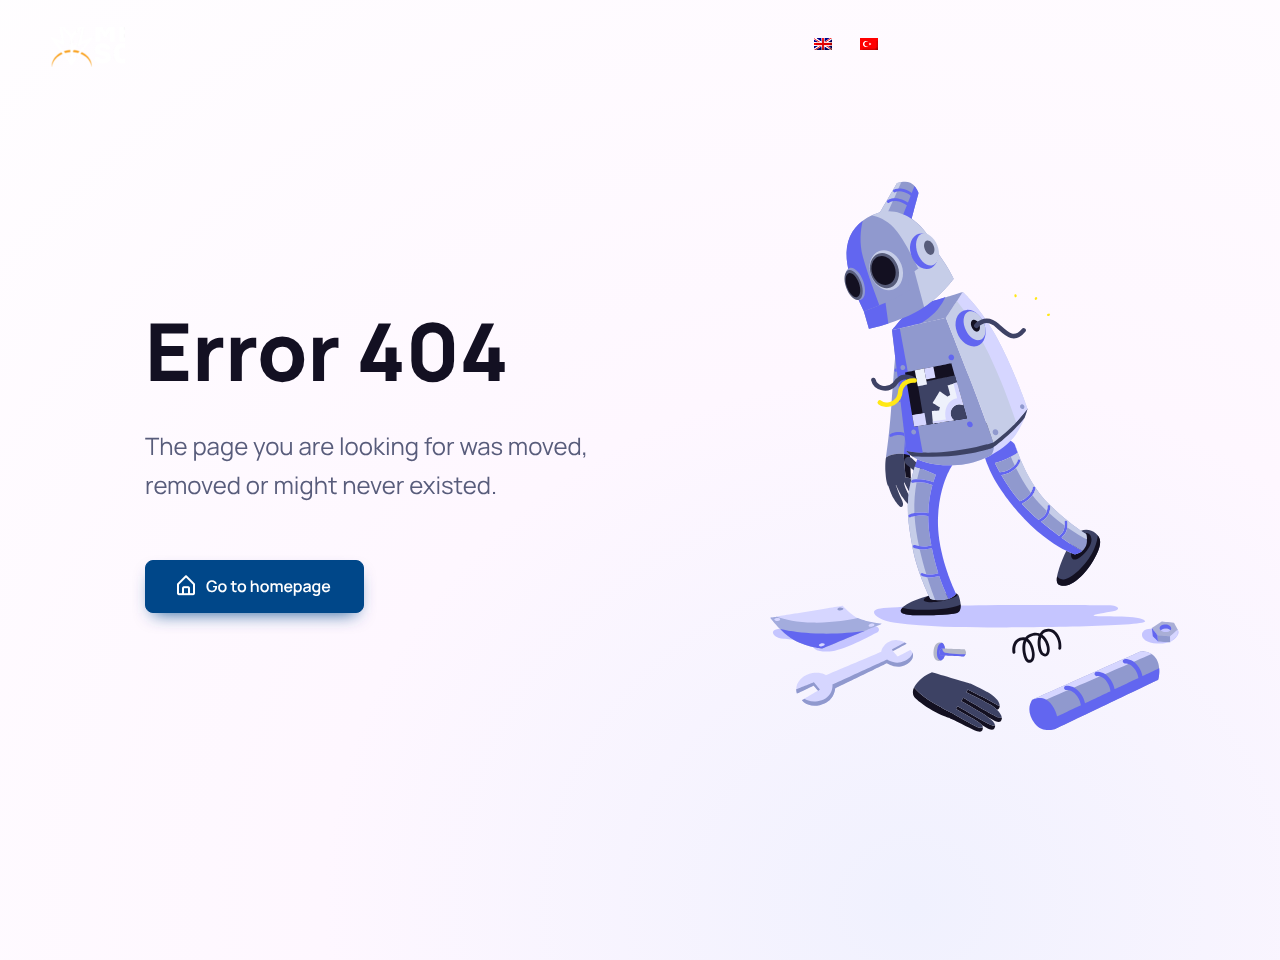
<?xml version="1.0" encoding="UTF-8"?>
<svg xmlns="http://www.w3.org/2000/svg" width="1280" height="960">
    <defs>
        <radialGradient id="g1" gradientUnits="userSpaceOnUse" cx="0" cy="0" r="1" gradientTransform="matrix(1847 0 0 1668 914 905)"><stop offset="0" stop-color="#F0F1FE"/><stop offset="0.32" stop-color="#FEF7FF"/><stop offset="0.83" stop-color="#FFFFFF"/></radialGradient>
        <filter id="blur1" x="-50%" y="-200%" width="200%" height="500%"><feGaussianBlur stdDeviation="9"/></filter>
    </defs>
    <rect width="100%" height="100%" fill="#FFFFFF"/>
    <rect x="0" y="0" width="1280" height="960" fill="url(#g1)"/>
    <image x="51" y="27" width="74" height="40" href="img_01.png"/>
    <image x="814" y="38" width="18" height="12" href="img_02.png"/>
    <image x="860" y="38" width="18" height="12" href="img_03.png"/>
    <text x="145" y="381" font-family="Manrope" font-size="80" font-weight="800" fill="#131022">Error 404</text>
    <text font-family="Manrope" font-size="24" fill="#585C7B">
        <tspan x="145" y="455">The page you are looking for was moved,</tspan>
        <tspan x="145" y="494">removed or might never existed.</tspan>
    </text>
    <rect x="153" y="576" width="203" height="37" fill="#004789" fill-opacity="0.9" filter="url(#blur1)"/>
    <rect x="145.5" y="560.5" width="218" height="52" rx="7.5" fill="#004789" stroke="#004789"/>
    <image x="177" y="575" width="18" height="21" href="img_04.png"/>
    <text x="206" y="592" font-family="Manrope" font-size="16" font-weight="600" fill="#FFFFFF">Go to homepage</text>
    <image x="770" y="181" width="409" height="551" href="img_05.png"/>
</svg>
